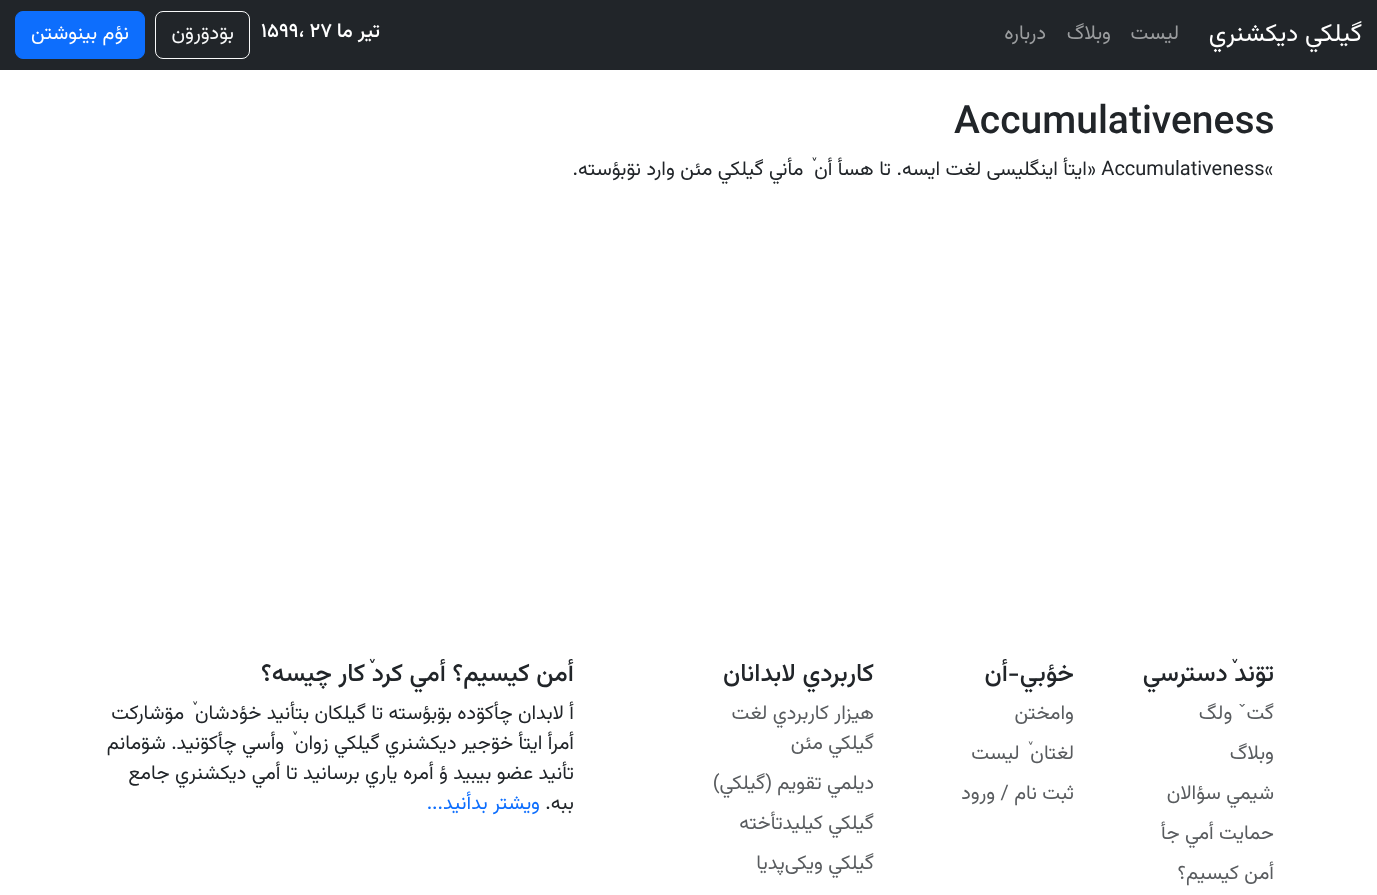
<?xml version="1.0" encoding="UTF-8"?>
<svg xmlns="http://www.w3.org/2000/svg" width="1377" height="895">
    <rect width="100%" height="100%" fill="#FFFFFF"/>
    <rect x="0" y="0" width="1377" height="70" fill="#212529"/>
    <text x="1362" y="41" font-family="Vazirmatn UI" font-size="25" direction="rtl" fill="#FFFFFF">گيلکي ديکشنري</text>
    <text x="1179" y="39" font-family="Vazirmatn UI" font-size="20" direction="rtl" fill="#9B9D9F">ليست</text>
    <text x="1111" y="39" font-family="Vazirmatn UI" font-size="20" direction="rtl" fill="#9B9D9F">وبلاگ</text>
    <text x="1046" y="39" font-family="Vazirmatn UI" font-size="20" direction="rtl" fill="#9B9D9F">درباره</text>
    <text x="380" y="37" font-family="Vazirmatn UI" font-size="20" font-weight="500" direction="rtl" fill="#FFFFFF">تیر ما</text>
    <text x="261" y="37" font-family="Vazirmatn UI" font-size="20" font-weight="500" fill="#FFFFFF">۱۵۹۹، ۲۷</text>
    <rect x="155.5" y="11.5" width="94" height="47" rx="7.5" fill="none" stroke="#F8F9FA"/>
    <text x="234" y="39" font-family="Vazirmatn UI" font-size="20" direction="rtl" fill="#F8F9FA">بۊدۊرۊن</text>
    <rect x="15.5" y="11.5" width="129" height="47" rx="7.5" fill="#0D6EFD" stroke="#0D6EFD"/>
    <text x="129" y="39" font-family="Vazirmatn UI" font-size="20" direction="rtl" fill="#FFFFFF">نؤم بينوشتن</text>
    <text x="954" y="133" font-family="Vazirmatn UI" font-size="39" font-weight="500" fill="#212529">Accumulativeness</text>
    <text x="1087" y="175" font-family="Vazirmatn UI" font-size="20" fill="#212529">» Accumulativeness«</text>
    <text x="1087" y="175" font-family="Vazirmatn UI" font-size="20" direction="rtl" fill="#212529">ايتأ اينگليسی لغت ايسه.</text>
    <text x="891" y="175" font-family="Vazirmatn UI" font-size="20" direction="rtl" fill="#212529">تا هسأ أن ٚ مأني گيلکي مئن وارد نۊبؤسته.</text>
    <text x="1274" y="681" font-family="Vazirmatn UI" font-size="25" font-weight="500" direction="rtl" fill="#212529">تۊند ٚدسترسي</text>
    <text x="1274" y="719" font-family="Vazirmatn UI" font-size="20" direction="rtl" fill="#595C5F">گتˇ ولگ</text>
    <text x="1274" y="759" font-family="Vazirmatn UI" font-size="20" direction="rtl" fill="#595C5F">وبلاگ</text>
    <text x="1274" y="799" font-family="Vazirmatn UI" font-size="20" direction="rtl" fill="#595C5F">شيمي سؤالان</text>
    <text x="1274" y="839" font-family="Vazirmatn UI" font-size="20" direction="rtl" fill="#595C5F">حمایت أمي جأ</text>
    <text x="1274" y="879" font-family="Vazirmatn UI" font-size="20" direction="rtl" fill="#595C5F">أمن کيسيم؟</text>
    <text x="1074" y="681" font-family="Vazirmatn UI" font-size="25" font-weight="500" direction="rtl" fill="#212529">خؤبي-أن</text>
    <text x="1074" y="719" font-family="Vazirmatn UI" font-size="20" direction="rtl" fill="#595C5F">وامختن</text>
    <text x="1074" y="759" font-family="Vazirmatn UI" font-size="20" direction="rtl" fill="#595C5F">لغتان ٚ ليست</text>
    <text x="1074" y="799" font-family="Vazirmatn UI" font-size="20" direction="rtl" fill="#595C5F">ثبت نام / ورود</text>
    <text x="874" y="681" font-family="Vazirmatn UI" font-size="25" font-weight="500" direction="rtl" fill="#212529">کاربردي لابدانان</text>
    <text font-family="Vazirmatn UI" font-size="20" direction="rtl" fill="#595C5F">
        <tspan x="874" y="719">هيزار کاربردي لغت</tspan>
        <tspan x="874" y="749">گیلکي مئن</tspan>
    </text>
    <text x="874" y="789" font-family="Vazirmatn UI" font-size="20" direction="rtl" fill="#595C5F">ديلمي تقويم (گيلکي)</text>
    <text x="874" y="829" font-family="Vazirmatn UI" font-size="20" direction="rtl" fill="#595C5F">گيلکي کيليدتأخته</text>
    <text x="874" y="869" font-family="Vazirmatn UI" font-size="20" direction="rtl" fill="#595C5F">گيلکي ویکی‌پدیا</text>
    <text x="574" y="681" font-family="Vazirmatn UI" font-size="25" font-weight="500" direction="rtl" fill="#212529">أمن کيسيم؟ أمي کرد ٚکار چيسه؟</text>
    <text font-family="Vazirmatn UI" font-size="20" direction="rtl" fill="#212529">
        <tspan x="574" y="719">أ لابدان چأکۊده بۊبؤسته تا گيلکان بتأنيد خؤدشان ٚ مۊشارکت</tspan>
        <tspan x="574" y="749">أمرأ ايتأ خۊجير ديکشنري گيلکي زوان ٚ وأسي چأکۊنيد. شۊمانم</tspan>
        <tspan x="574" y="779">تأنيد عضو بيبيد ؤ أمره یاري برسانيد تا أمي ديکشنري جامع</tspan>
        <tspan x="574" y="809">ببه.</tspan>
    </text>
    <text x="540" y="809" font-family="Vazirmatn UI" font-size="20" direction="rtl" fill="#0D6EFD">ويشتر بدأنيد...</text>
</svg>
